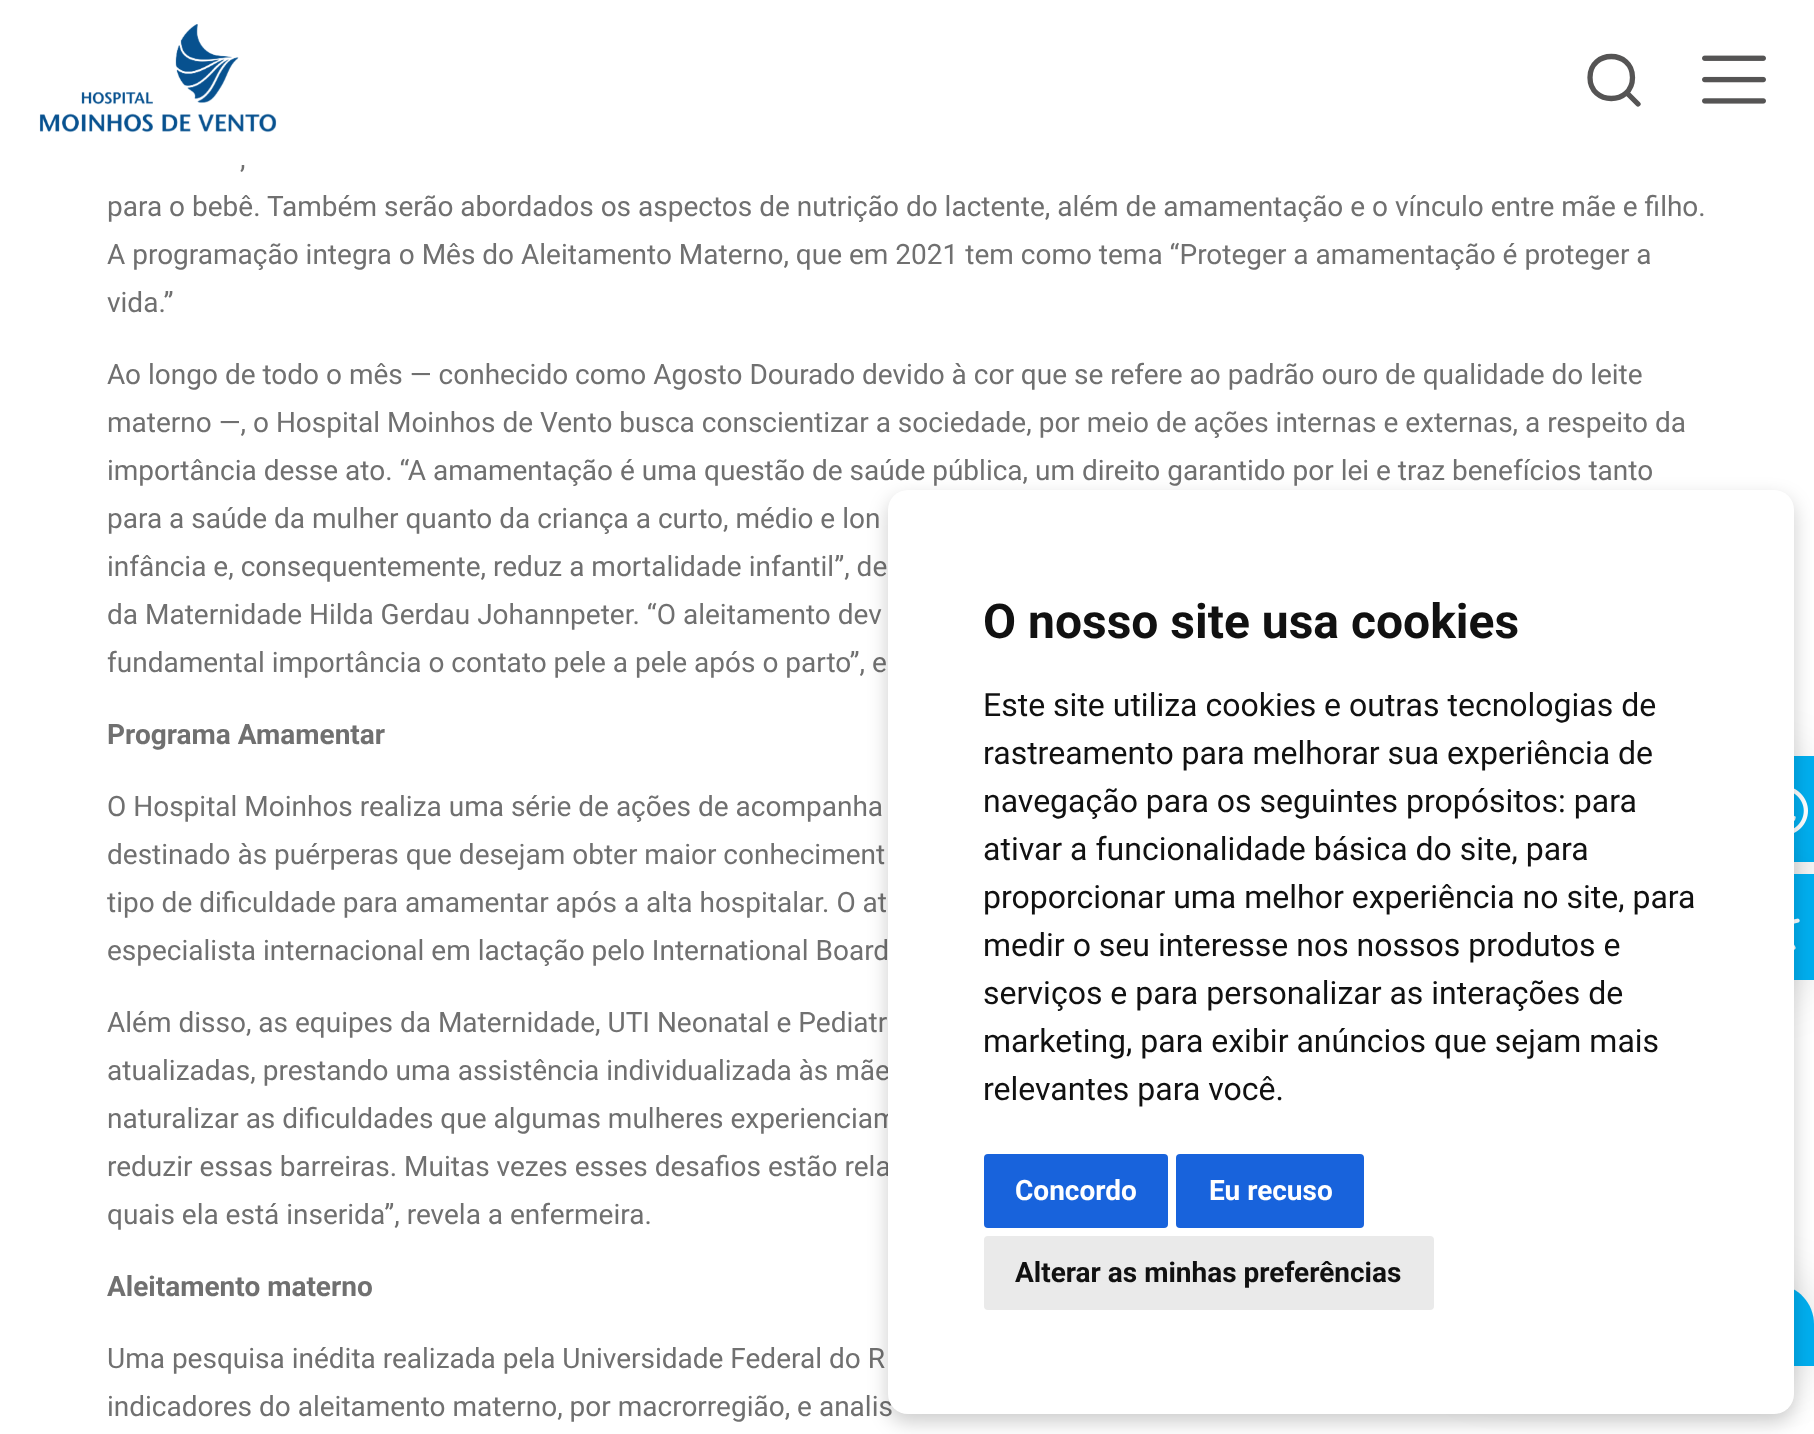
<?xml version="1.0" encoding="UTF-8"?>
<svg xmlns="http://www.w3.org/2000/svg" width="1814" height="1434">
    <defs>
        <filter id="blur1" x="-50%" y="-200%" width="200%" height="500%"><feGaussianBlur stdDeviation="30"/></filter>
        <filter id="blur2" x="-50%" y="-200%" width="200%" height="500%"><feGaussianBlur stdDeviation="10"/></filter>
    </defs>
    <rect width="100%" height="100%" fill="#FFFFFF"/>
    <image x="39" y="24" width="238" height="109" href="img_01.png"/>
    <path d="M 1638 104 L 1626.5 92.5 M 1632.5 77.5 C 1632.5 105.5 1590 105.5 1590 77.5 C 1590 49.5 1632.5 49.5 1632.5 77.5 Z" fill="none" stroke="#555454" stroke-width="5.3" stroke-linecap="round" stroke-linejoin="round"/>
    <image x="1702" y="55" width="64" height="49" href="img_02.png"/>
    <text x="240" y="168" font-family="Roboto" font-size="28" fill="#707070">,</text>
    <text font-family="Roboto" font-size="28" fill="#707070">
        <tspan x="107" y="216">para o bebê. Também serão abordados os aspectos de nutrição do lactente, além de amamentação e o vínculo entre mãe e filho.</tspan>
        <tspan x="107" y="264">A programação integra o Mês do Aleitamento Materno, que em 2021 tem como tema “Proteger a amamentação é proteger a</tspan>
        <tspan x="107" y="312">vida.”</tspan>
    </text>
    <text font-family="Roboto" font-size="28" fill="#707070">
        <tspan x="107" y="384">Ao longo de todo o mês — conhecido como Agosto Dourado devido à cor que se refere ao padrão ouro de qualidade do leite</tspan>
        <tspan x="107" y="432">materno —, o Hospital Moinhos de Vento busca conscientizar a sociedade, por meio de ações internas e externas, a respeito da</tspan>
        <tspan x="107" y="480">importância desse ato. “A amamentação é uma questão de saúde pública, um direito garantido por lei e traz benefícios tanto</tspan>
        <tspan x="107" y="528">para a saúde da mulher quanto da criança a curto, médio e lon</tspan>
        <tspan x="107" y="576">infância e, consequentemente, reduz a mortalidade infantil”, de</tspan>
        <tspan x="107" y="624">da Maternidade Hilda Gerdau Johannpeter. “O aleitamento dev</tspan>
        <tspan x="107" y="672">fundamental importância o contato pele a pele após o parto”, e</tspan>
    </text>
    <text x="107" y="744" font-family="Roboto" font-size="28" font-weight="700" fill="#707070">Programa Amamentar</text>
    <text font-family="Roboto" font-size="28" fill="#707070">
        <tspan x="107" y="816">O Hospital Moinhos realiza uma série de ações de acompanha</tspan>
        <tspan x="107" y="864">destinado às puérperas que desejam obter maior conheciment</tspan>
        <tspan x="107" y="912">tipo de dificuldade para amamentar após a alta hospitalar. O at</tspan>
        <tspan x="107" y="960">especialista internacional em lactação pelo International Board</tspan>
    </text>
    <text font-family="Roboto" font-size="28" fill="#707070">
        <tspan x="107" y="1032">Além disso, as equipes da Maternidade, UTI Neonatal e Pediatr</tspan>
        <tspan x="107" y="1080">atualizadas, prestando uma assistência individualizada às mãe</tspan>
        <tspan x="107" y="1128">naturalizar as dificuldades que algumas mulheres experienciam</tspan>
        <tspan x="107" y="1176">reduzir essas barreiras. Muitas vezes esses desafios estão rela</tspan>
        <tspan x="107" y="1224">quais ela está inserida”, revela a enfermeira.</tspan>
    </text>
    <text x="107" y="1296" font-family="Roboto" font-size="28" font-weight="700" fill="#707070">Aleitamento materno</text>
    <text font-family="Roboto" font-size="28" fill="#707070">
        <tspan x="107" y="1368">Uma pesquisa inédita realizada pela Universidade Federal do R</tspan>
        <tspan x="107" y="1416">indicadores do aleitamento materno, por macrorregião, e analis</tspan>
    </text>
    <rect x="1724" y="762" width="90" height="106" rx="53" fill="#000000" fill-opacity="0.16" filter="url(#blur1)"/>
    <rect x="1794" y="756" width="20" height="106" fill="#00AEEF"/>
    <image x="1794" y="788" width="14" height="45" href="img_03.png"/>
    <rect x="1724" y="880" width="90" height="106" rx="53" fill="#000000" fill-opacity="0.16" filter="url(#blur1)"/>
    <rect x="1794" y="874" width="20" height="106" fill="#00AEEF"/>
    <image x="1794" y="918" width="6" height="32" href="img_04.png"/>
    <rect x="1458" y="1290" width="356" height="82" rx="40" fill="#000000" fill-opacity="0.16" filter="url(#blur1)"/>
    <path d="M 1498 1284 H 1774 C 1796 1284 1814 1302 1814 1324 V 1366 H 1458 V 1324 C 1458 1302 1476 1284 1498 1284 Z" fill="#00AEEF"/>
    <rect x="888" y="498" width="906" height="924" rx="20" fill="#000000" fill-opacity="0.2" filter="url(#blur2)"/>
    <rect x="888" y="490" width="906" height="924" rx="20" fill="#FFFFFF"/>
    <text x="983" y="638" font-family="Roboto" font-size="48" font-weight="700" fill="#111111">O nosso site usa cookies</text>
    <text font-family="Roboto" font-size="32" fill="#111111">
        <tspan x="983" y="716">Este site utiliza cookies e outras tecnologias de</tspan>
        <tspan x="983" y="764">rastreamento para melhorar sua experiência de</tspan>
        <tspan x="983" y="812">navegação para os seguintes propósitos: para</tspan>
        <tspan x="983" y="860">ativar a funcionalidade básica do site, para</tspan>
        <tspan x="983" y="908">proporcionar uma melhor experiência no site, para</tspan>
        <tspan x="983" y="956">medir o seu interesse nos nossos produtos e</tspan>
        <tspan x="983" y="1004">serviços e para personalizar as interações de</tspan>
        <tspan x="983" y="1052">marketing, para exibir anúncios que sejam mais</tspan>
        <tspan x="983" y="1100">relevantes para você.</tspan>
    </text>
    <rect x="984" y="1154" width="184" height="74" rx="4" fill="#1863DC"/>
    <text x="1015" y="1200" font-family="Roboto" font-size="28" font-weight="700" fill="#FFFFFF">Concordo</text>
    <rect x="1176" y="1154" width="188" height="74" rx="4" fill="#1863DC"/>
    <text x="1209" y="1200" font-family="Roboto" font-size="28" font-weight="700" fill="#FFFFFF">Eu recuso</text>
    <rect x="984" y="1236" width="450" height="74" rx="4" fill="#EAEAEA"/>
    <text x="1015" y="1282" font-family="Roboto" font-size="28" font-weight="700" fill="#111111">Alterar as minhas preferências</text>
</svg>
